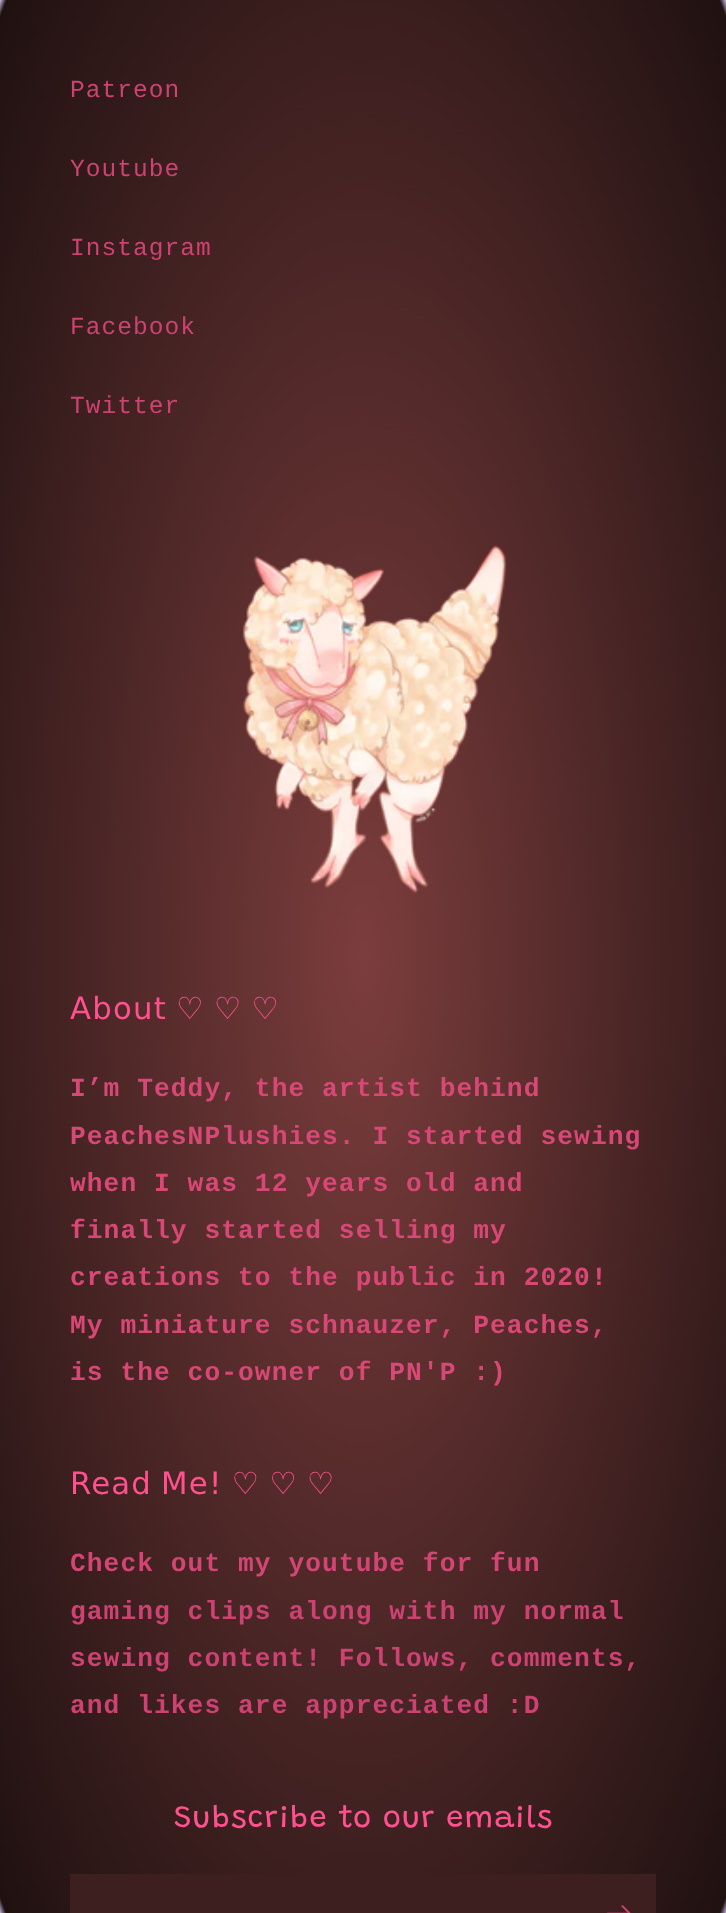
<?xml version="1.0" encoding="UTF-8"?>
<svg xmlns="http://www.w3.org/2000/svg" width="726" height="1913">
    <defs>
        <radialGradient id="g1" gradientUnits="userSpaceOnUse" cx="0" cy="0" r="1" gradientTransform="matrix(514 0 0 1354 363 957)"><stop offset="0" stop-color="#7C3D3D"/><stop offset="0.99" stop-color="#201111"/><stop offset="1" stop-color="#D7CCFA"/><stop offset="1" stop-color="#A13D3D"/></radialGradient>
    </defs>
    <rect width="100%" height="100%" fill="#FFFFFF"/>
    <rect x="0" y="0" width="726" height="1913" fill="url(#g1)"/>
    <text x="70" y="97" font-family="Liberation Mono" font-size="24.5" letter-spacing="1.05" fill="#CC4272">Patreon</text>
    <text x="70" y="176" font-family="Liberation Mono" font-size="24.5" letter-spacing="1.05" fill="#CC4272">Youtube</text>
    <text x="70" y="255" font-family="Liberation Mono" font-size="24.5" letter-spacing="1.05" fill="#CC4272">Instagram</text>
    <text x="70" y="334" font-family="Liberation Mono" font-size="24.5" letter-spacing="1.05" fill="#CC4272">Facebook</text>
    <text x="70" y="413" font-family="Liberation Mono" font-size="24.5" letter-spacing="1.05" fill="#CC4272">Twitter</text>
    <image x="242" y="545" width="265" height="348" href="img_01.png"/>
    <text x="70" y="1019" word-spacing="-2" font-family="DejaVu Sans" font-size="30.75" letter-spacing="1.2" fill="#FF508F">About ♡ ︎♡ ︎♡ ︎</text>
    <text font-family="Liberation Mono" font-size="26.25" font-weight="700" letter-spacing="1.05" fill="#D84877">
        <tspan x="70" y="1096">I’m Teddy, the artist behind</tspan>
        <tspan x="70" y="1144">PeachesNPlushies. I started sewing</tspan>
        <tspan x="70" y="1191">when I was 12 years old and</tspan>
        <tspan x="70" y="1238">finally started selling my</tspan>
        <tspan x="70" y="1285">creations to the public in 2020!</tspan>
        <tspan x="70" y="1333">My miniature schnauzer, Peaches,</tspan>
        <tspan x="70" y="1380">is the co-owner of PN'P :)</tspan>
    </text>
    <text x="70" y="1494" word-spacing="-2" font-family="DejaVu Sans" font-size="30.75" letter-spacing="1.2" fill="#FF508F">Read Me! ♡ ︎♡ ︎♡ ︎</text>
    <text x="70" y="1571" font-family="Liberation Mono" font-size="26.25" font-weight="700" letter-spacing="1.05" fill="#D24575">Check out my youtube for fun</text>
    <text font-family="Liberation Mono" font-size="26.25" font-weight="700" letter-spacing="1.05" fill="#CC4272">
        <tspan x="70" y="1619">gaming clips along with my normal</tspan>
        <tspan x="70" y="1666">sewing content! Follows, comments,</tspan>
        <tspan x="70" y="1713">and likes are appreciated :D</tspan>
    </text>
    <text x="174" y="1827" font-family="Grandstander" font-size="30.75" letter-spacing="1.2" fill="#FF508F">Subscribe to our emails</text>
    <rect x="70" y="1874" width="586" height="39" fill="#3E1F1F"/>
    <image x="606" y="1905" width="25" height="8" href="img_02.png"/>
</svg>
